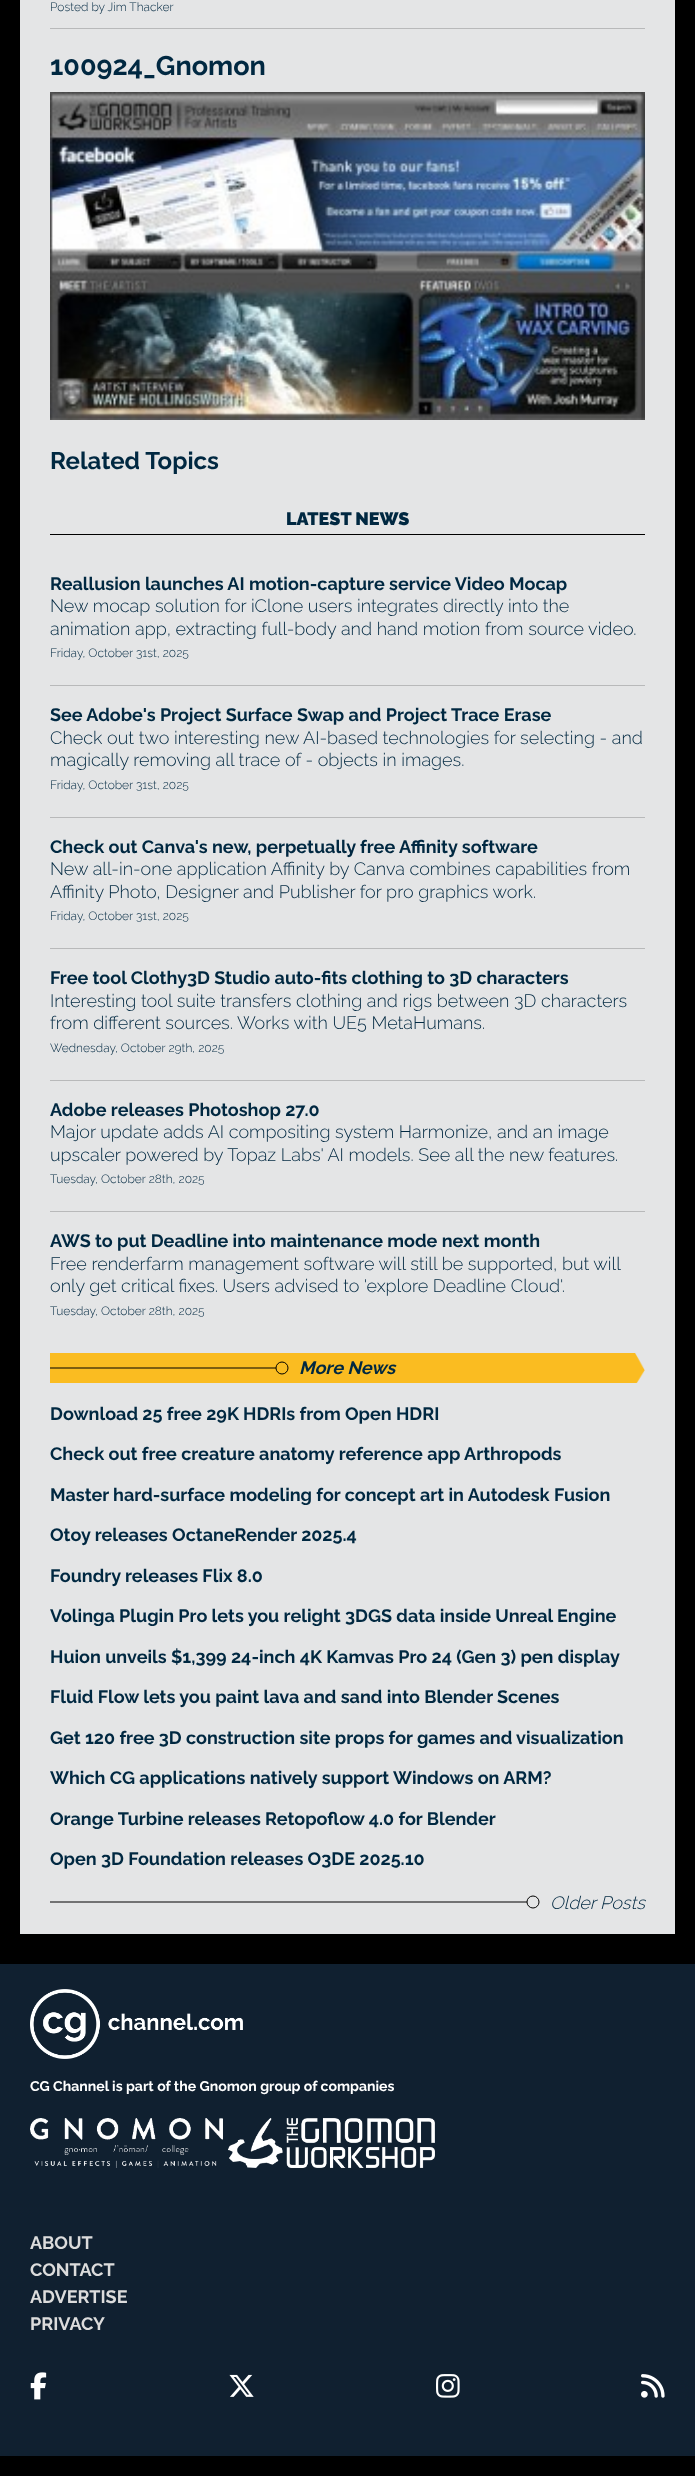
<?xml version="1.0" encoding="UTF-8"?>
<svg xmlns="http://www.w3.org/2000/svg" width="695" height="2476">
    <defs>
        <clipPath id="clip1"><rect x="50" y="1360" width="240" height="16"/></clipPath>
        <clipPath id="clip2"><rect x="50" y="1894" width="491" height="16"/></clipPath>
    </defs>
    <rect width="100%" height="100%" fill="#000000"/>
    <rect x="20" y="0" width="655" height="1934" fill="#E4E5E6"/>
    <rect x="50" y="28" width="595" height="1" fill="#B8B9BA"/>
    <text x="50" y="11" font-family="Raleway" font-size="12" font-weight="300" fill="#002841">Posted by Jim Thacker</text>
    <text x="50" y="75" font-family="Raleway" font-size="27" font-weight="700" fill="#002841">100924_Gnomon</text>
    <image x="50" y="92" width="595" height="328" href="img_01.png"/>
    <text x="50" y="469" font-family="Raleway" font-size="24" font-weight="700" fill="#002841">Related Topics</text>
    <rect x="50" y="534" width="595" height="1" fill="#000000"/>
    <text x="286" y="525" font-family="Raleway" font-size="18" font-weight="900" fill="#002841">LATEST NEWS</text>
    <rect x="50" y="685" width="595" height="1" fill="#B8B9BA"/>
    <text x="50" y="590" font-family="Raleway" font-size="18" font-weight="700" fill="#002841">Reallusion launches AI motion-capture service Video Mocap</text>
    <text font-family="Raleway" font-size="18" font-weight="300" fill="#002841">
        <tspan x="50" y="612">New mocap solution for iClone users integrates directly into the</tspan>
        <tspan x="50" y="635">animation app, extracting full-body and hand motion from source video.</tspan>
    </text>
    <text x="50" y="657" font-family="Raleway" font-size="12" font-weight="300" fill="#002841">Friday, October 31st, 2025</text>
    <rect x="50" y="817" width="595" height="1" fill="#B8B9BA"/>
    <text x="50" y="721" font-family="Raleway" font-size="18" font-weight="700" fill="#002841">See Adobe's Project Surface Swap and Project Trace Erase</text>
    <text font-family="Raleway" font-size="18" font-weight="300" fill="#002841">
        <tspan x="50" y="744">Check out two interesting new AI-based technologies for selecting - and</tspan>
        <tspan x="50" y="766">magically removing all trace of - objects in images.</tspan>
    </text>
    <text x="50" y="789" font-family="Raleway" font-size="12" font-weight="300" fill="#002841">Friday, October 31st, 2025</text>
    <rect x="50" y="948" width="595" height="1" fill="#B8B9BA"/>
    <text x="50" y="853" font-family="Raleway" font-size="18" font-weight="700" fill="#002841">Check out Canva's new, perpetually free Affinity software</text>
    <text font-family="Raleway" font-size="18" font-weight="300" fill="#002841">
        <tspan x="50" y="875">New all-in-one application Affinity by Canva combines capabilities from</tspan>
        <tspan x="50" y="898">Affinity Photo, Designer and Publisher for pro graphics work.</tspan>
    </text>
    <text x="50" y="920" font-family="Raleway" font-size="12" font-weight="300" fill="#002841">Friday, October 31st, 2025</text>
    <rect x="50" y="1080" width="595" height="1" fill="#B8B9BA"/>
    <text x="50" y="984" font-family="Raleway" font-size="18" font-weight="700" fill="#002841">Free tool Clothy3D Studio auto-fits clothing to 3D characters</text>
    <text font-family="Raleway" font-size="18" font-weight="300" fill="#002841">
        <tspan x="50" y="1007">Interesting tool suite transfers clothing and rigs between 3D characters</tspan>
        <tspan x="50" y="1029">from different sources. Works with UE5 MetaHumans.</tspan>
    </text>
    <text x="50" y="1052" font-family="Raleway" font-size="12" font-weight="300" fill="#002841">Wednesday, October 29th, 2025</text>
    <rect x="50" y="1211" width="595" height="1" fill="#B8B9BA"/>
    <text x="50" y="1116" font-family="Raleway" font-size="18" font-weight="700" fill="#002841">Adobe releases Photoshop 27.0</text>
    <text font-family="Raleway" font-size="18" font-weight="300" fill="#002841">
        <tspan x="50" y="1138">Major update adds AI compositing system Harmonize, and an image</tspan>
        <tspan x="50" y="1161">upscaler powered by Topaz Labs' AI models. See all the new features.</tspan>
    </text>
    <text x="50" y="1183" font-family="Raleway" font-size="12" font-weight="300" fill="#002841">Tuesday, October 28th, 2025</text>
    <text x="50" y="1247" font-family="Raleway" font-size="18" font-weight="700" fill="#002841">AWS to put Deadline into maintenance mode next month</text>
    <text font-family="Raleway" font-size="18" font-weight="300" fill="#002841">
        <tspan x="50" y="1270">Free renderfarm management software will still be supported, but will</tspan>
        <tspan x="50" y="1292">only get critical fixes. Users advised to 'explore Deadline Cloud'.</tspan>
    </text>
    <text x="50" y="1315" font-family="Raleway" font-size="12" font-weight="300" fill="#002841">Tuesday, October 28th, 2025</text>
    <image x="50" y="1353" width="595" height="30" href="img_02.png"/>
    <circle cx="282" cy="1368" r="6" fill="none" stroke="#000000"/>
    <g clip-path="url(#clip1)">
        <path d="M -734 1368 H 276" fill="none" stroke="#000000"/>
    </g>
    <text x="299" y="1374" font-family="Raleway" font-size="18" font-weight="700" font-style="italic" fill="#002841">More News</text>
    <text x="50" y="1420" font-family="Raleway" font-size="18" font-weight="700" fill="#002841">Download 25 free 29K HDRIs from Open HDRI</text>
    <text x="50" y="1460" font-family="Raleway" font-size="18" font-weight="700" fill="#002841">Check out free creature anatomy reference app Arthropods</text>
    <text x="50" y="1501" font-family="Raleway" font-size="18" font-weight="700" fill="#002841">Master hard-surface modeling for concept art in Autodesk Fusion</text>
    <text x="50" y="1541" font-family="Raleway" font-size="18" font-weight="700" fill="#002841">Otoy releases OctaneRender 2025.4</text>
    <text x="50" y="1582" font-family="Raleway" font-size="18" font-weight="700" fill="#002841">Foundry releases Flix 8.0</text>
    <text x="50" y="1622" font-family="Raleway" font-size="18" font-weight="700" fill="#002841">Volinga Plugin Pro lets you relight 3DGS data inside Unreal Engine</text>
    <text x="50" y="1663" font-family="Raleway" font-size="18" font-weight="700" fill="#002841">Huion unveils $1,399 24-inch 4K Kamvas Pro 24 (Gen 3) pen display</text>
    <text x="50" y="1703" font-family="Raleway" font-size="18" font-weight="700" fill="#002841">Fluid Flow lets you paint lava and sand into Blender Scenes</text>
    <text x="50" y="1744" font-family="Raleway" font-size="18" font-weight="700" fill="#002841">Get 120 free 3D construction site props for games and visualization</text>
    <text x="50" y="1784" font-family="Raleway" font-size="18" font-weight="700" fill="#002841">Which CG applications natively support Windows on ARM?</text>
    <text x="50" y="1825" font-family="Raleway" font-size="18" font-weight="700" fill="#002841">Orange Turbine releases Retopoflow 4.0 for Blender</text>
    <text x="50" y="1865" font-family="Raleway" font-size="18" font-weight="700" fill="#002841">Open 3D Foundation releases O3DE 2025.10</text>
    <circle cx="533" cy="1902" r="6" fill="none" stroke="#000000"/>
    <g clip-path="url(#clip2)">
        <path d="M -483 1902 H 527" fill="none" stroke="#000000"/>
    </g>
    <text x="550" y="1909" font-family="Raleway" font-size="18" font-weight="300" font-style="italic" fill="#002841">Older Posts</text>
    <rect x="0" y="1964" width="695" height="492" fill="#102030"/>
    <image x="30" y="1989" width="213" height="70" href="img_03.png"/>
    <text x="30" y="2091" font-family="Raleway" font-size="14.05" font-weight="700" fill="#FFFFFF">CG Channel is part of the Gnomon group of companies</text>
    <image x="30" y="2118" width="193" height="50" href="img_04.png"/>
    <image x="228" y="2118" width="207" height="50" href="img_05.png"/>
    <text font-family="Raleway" font-size="18" font-weight="700" fill="#DCDCDC">
        <tspan x="30" y="2249">ABOUT</tspan>
        <tspan x="30" y="2276">CONTACT</tspan>
        <tspan x="30" y="2303">ADVERTISE</tspan>
        <tspan x="30" y="2330">PRIVACY</tspan>
    </text>
    <image x="30" y="2372" width="17" height="28" href="img_06.png"/>
    <image x="229" y="2374" width="25" height="23" href="img_07.png"/>
    <image x="436" y="2374" width="24" height="24" href="img_08.png"/>
    <image x="641" y="2374" width="24" height="24" href="img_09.png"/>
</svg>
